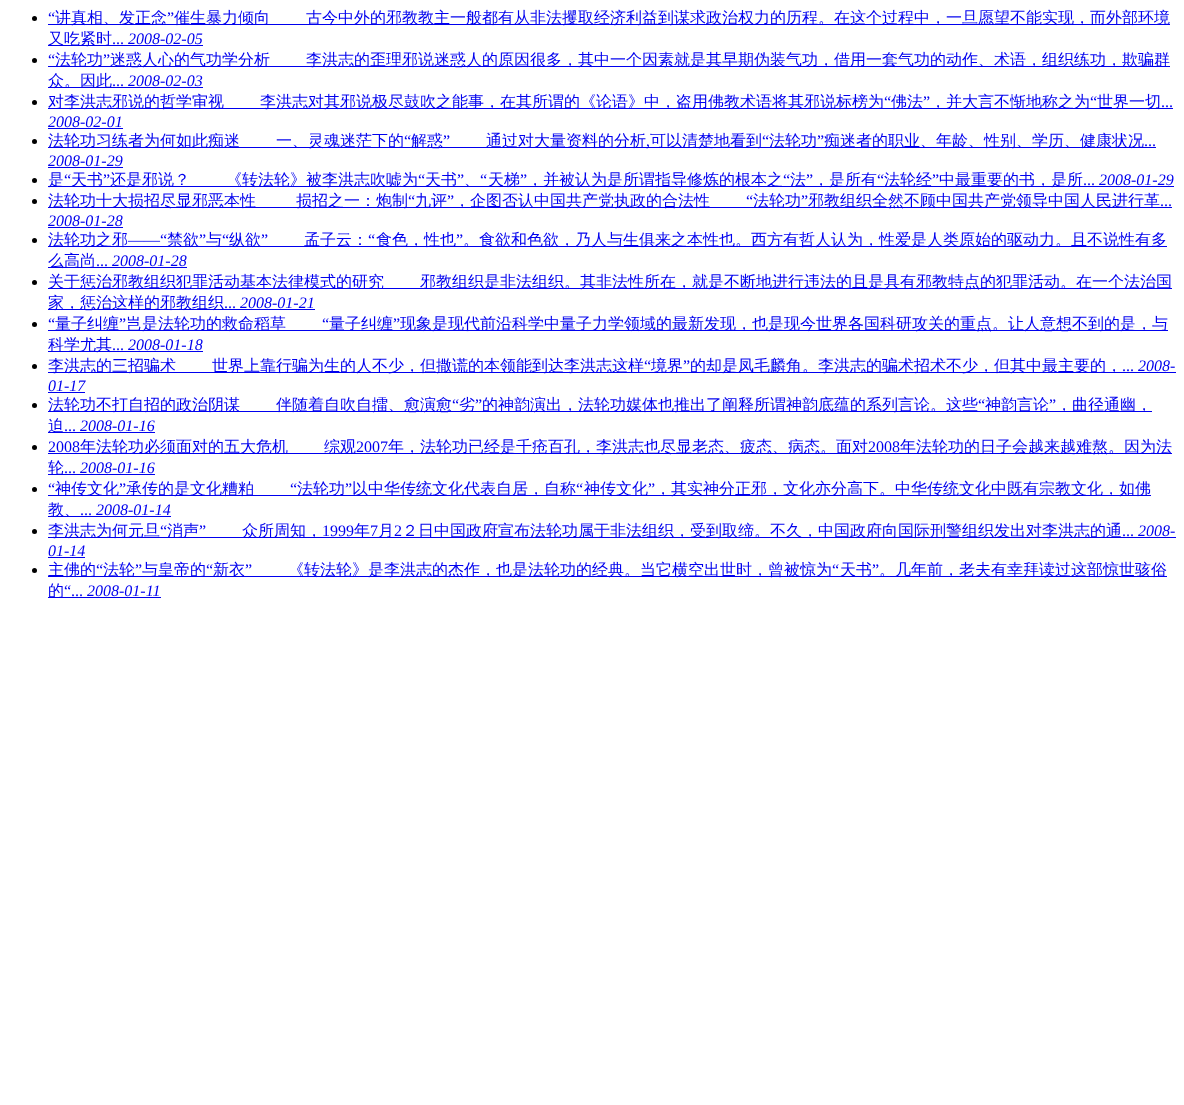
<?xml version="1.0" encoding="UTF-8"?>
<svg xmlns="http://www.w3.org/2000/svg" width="1184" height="1105">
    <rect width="100%" height="100%" fill="#FFFFFF"/>
    <circle cx="34.5" cy="18.5" r="2.5" fill="#000000"/>
    <text x="48" y="23" font-family="Liberation Serif" font-size="16" fill="#0000EE">“</text>
    <rect x="48" y="24" width="1122" height="1" fill="#0000EE"/>
    <text x="55" y="23" font-family="WenQuanYi Zen Hei" font-size="16" font-weight="500" fill="#0000EE">讲真相、发正念</text>
    <text x="167" y="23" font-family="Liberation Serif" font-size="16" fill="#0000EE">”</text>
    <text x="174" y="23" font-family="WenQuanYi Zen Hei" font-size="16" font-weight="500" fill="#0000EE">催生暴力倾向</text>
    <text x="306" y="23" font-family="WenQuanYi Zen Hei" font-size="16" font-weight="500" fill="#0000EE">古今中外的邪教教主一般都有从非法攫取经济利益到谋求政治权力的历程。在这个过程中，一旦愿望不能实现，而外部环境</text>
    <rect x="48" y="45" width="155" height="1" fill="#0000EE"/>
    <text x="48" y="44" font-family="WenQuanYi Zen Hei" font-size="16" font-weight="500" fill="#0000EE">又吃紧时</text>
    <text x="112" y="44" font-family="Liberation Serif" font-size="16" fill="#0000EE">...</text>
    <text x="128" y="44" font-family="Liberation Serif" font-size="16" font-style="italic" fill="#0000EE">2008-02-05</text>
    <circle cx="34.5" cy="60.5" r="2.5" fill="#000000"/>
    <text x="48" y="65" font-family="Liberation Serif" font-size="16" fill="#0000EE">“</text>
    <rect x="48" y="66" width="1122" height="1" fill="#0000EE"/>
    <text x="55" y="65" font-family="WenQuanYi Zen Hei" font-size="16" font-weight="500" fill="#0000EE">法轮功</text>
    <text x="103" y="65" font-family="Liberation Serif" font-size="16" fill="#0000EE">”</text>
    <text x="110" y="65" font-family="WenQuanYi Zen Hei" font-size="16" font-weight="500" fill="#0000EE">迷惑人心的气功学分析</text>
    <text x="306" y="65" font-family="WenQuanYi Zen Hei" font-size="16" font-weight="500" fill="#0000EE">李洪志的歪理邪说迷惑人的原因很多，其中一个因素就是其早期伪装气功，借用一套气功的动作、术语，组织练功，欺骗群</text>
    <rect x="48" y="87" width="155" height="1" fill="#0000EE"/>
    <text x="48" y="86" font-family="WenQuanYi Zen Hei" font-size="16" font-weight="500" fill="#0000EE">众。因此</text>
    <text x="112" y="86" font-family="Liberation Serif" font-size="16" fill="#0000EE">...</text>
    <text x="128" y="86" font-family="Liberation Serif" font-size="16" font-style="italic" fill="#0000EE">2008-02-03</text>
    <circle cx="34.5" cy="102.5" r="2.5" fill="#000000"/>
    <rect x="48" y="108" width="1125" height="1" fill="#0000EE"/>
    <text x="48" y="107" font-family="WenQuanYi Zen Hei" font-size="16" font-weight="500" fill="#0000EE">对李洪志邪说的哲学审视</text>
    <text x="260" y="107" font-family="WenQuanYi Zen Hei" font-size="16" font-weight="500" fill="#0000EE">李洪志对其邪说极尽鼓吹之能事，在其所谓的《论语》中，盗用佛教术语将其邪说标榜为</text>
    <text x="884" y="107" font-family="Liberation Serif" font-size="16" fill="#0000EE">“</text>
    <text x="891" y="107" font-family="WenQuanYi Zen Hei" font-size="16" font-weight="500" fill="#0000EE">佛法</text>
    <text x="923" y="107" font-family="Liberation Serif" font-size="16" fill="#0000EE">”</text>
    <text x="930" y="107" font-family="WenQuanYi Zen Hei" font-size="16" font-weight="500" fill="#0000EE">，并大言不惭地称之为</text>
    <text x="1090" y="107" font-family="Liberation Serif" font-size="16" fill="#0000EE">“</text>
    <text x="1097" y="107" font-family="WenQuanYi Zen Hei" font-size="16" font-weight="500" fill="#0000EE">世界一切</text>
    <text x="1161" y="107" font-family="Liberation Serif" font-size="16" fill="#0000EE">...</text>
    <text x="48" y="127" font-family="Liberation Serif" font-size="16" font-style="italic" fill="#0000EE">2008-02-01</text>
    <rect x="48" y="128" width="75" height="1" fill="#0000EE"/>
    <circle cx="34.5" cy="141.5" r="2.5" fill="#000000"/>
    <rect x="48" y="147" width="1108" height="1" fill="#0000EE"/>
    <text x="48" y="146" font-family="WenQuanYi Zen Hei" font-size="16" font-weight="500" fill="#0000EE">法轮功习练者为何如此痴迷</text>
    <text x="276" y="146" font-family="WenQuanYi Zen Hei" font-size="16" font-weight="500" fill="#0000EE">一、灵魂迷茫下的</text>
    <text x="404" y="146" font-family="Liberation Serif" font-size="16" fill="#0000EE">“</text>
    <text x="411" y="146" font-family="WenQuanYi Zen Hei" font-size="16" font-weight="500" fill="#0000EE">解惑</text>
    <text x="443" y="146" font-family="Liberation Serif" font-size="16" fill="#0000EE">”</text>
    <text x="486" y="146" font-family="WenQuanYi Zen Hei" font-size="16" font-weight="500" fill="#0000EE">通过对大量资料的分析</text>
    <text x="650" y="146" font-family="WenQuanYi Zen Hei" font-size="16" font-weight="500" fill="#0000EE">可以清楚地看到</text>
    <text x="762" y="146" font-family="Liberation Serif" font-size="16" fill="#0000EE">“</text>
    <text x="769" y="146" font-family="WenQuanYi Zen Hei" font-size="16" font-weight="500" fill="#0000EE">法轮功</text>
    <text x="817" y="146" font-family="Liberation Serif" font-size="16" fill="#0000EE">”</text>
    <text x="824" y="146" font-family="WenQuanYi Zen Hei" font-size="16" font-weight="500" fill="#0000EE">痴迷者的职业、年龄、性别、学历、健康状况</text>
    <text x="646" y="146" font-family="Liberation Serif" font-size="16" fill="#0000EE">,</text>
    <text x="1144" y="146" font-family="Liberation Serif" font-size="16" fill="#0000EE">...</text>
    <text x="48" y="166" font-family="Liberation Serif" font-size="16" font-style="italic" fill="#0000EE">2008-01-29</text>
    <rect x="48" y="167" width="75" height="1" fill="#0000EE"/>
    <circle cx="34.5" cy="180.5" r="2.5" fill="#000000"/>
    <rect x="48" y="186" width="1126" height="1" fill="#0000EE"/>
    <text x="48" y="185" font-family="WenQuanYi Zen Hei" font-size="16" font-weight="500" fill="#0000EE">是</text>
    <text x="64" y="185" font-family="Liberation Serif" font-size="16" fill="#0000EE">“</text>
    <text x="71" y="185" font-family="WenQuanYi Zen Hei" font-size="16" font-weight="500" fill="#0000EE">天书</text>
    <text x="103" y="185" font-family="Liberation Serif" font-size="16" fill="#0000EE">”</text>
    <text x="110" y="185" font-family="WenQuanYi Zen Hei" font-size="16" font-weight="500" fill="#0000EE">还是邪说？</text>
    <text x="226" y="185" font-family="WenQuanYi Zen Hei" font-size="16" font-weight="500" fill="#0000EE">《转法轮》被李洪志吹嘘为</text>
    <text x="418" y="185" font-family="Liberation Serif" font-size="16" fill="#0000EE">“</text>
    <text x="425" y="185" font-family="WenQuanYi Zen Hei" font-size="16" font-weight="500" fill="#0000EE">天书</text>
    <text x="457" y="185" font-family="Liberation Serif" font-size="16" fill="#0000EE">”</text>
    <text x="464" y="185" font-family="WenQuanYi Zen Hei" font-size="16" font-weight="500" fill="#0000EE">、</text>
    <text x="480" y="185" font-family="Liberation Serif" font-size="16" fill="#0000EE">“</text>
    <text x="488" y="185" font-family="WenQuanYi Zen Hei" font-size="16" font-weight="500" fill="#0000EE">天梯</text>
    <text x="520" y="185" font-family="Liberation Serif" font-size="16" fill="#0000EE">”</text>
    <text x="527" y="185" font-family="WenQuanYi Zen Hei" font-size="16" font-weight="500" fill="#0000EE">，并被认为是所谓指导修炼的根本之</text>
    <text x="783" y="185" font-family="Liberation Serif" font-size="16" fill="#0000EE">“</text>
    <text x="790" y="185" font-family="WenQuanYi Zen Hei" font-size="16" font-weight="500" fill="#0000EE">法</text>
    <text x="806" y="185" font-family="Liberation Serif" font-size="16" fill="#0000EE">”</text>
    <text x="813" y="185" font-family="WenQuanYi Zen Hei" font-size="16" font-weight="500" fill="#0000EE">，是所有</text>
    <text x="877" y="185" font-family="Liberation Serif" font-size="16" fill="#0000EE">“</text>
    <text x="884" y="185" font-family="WenQuanYi Zen Hei" font-size="16" font-weight="500" fill="#0000EE">法轮经</text>
    <text x="932" y="185" font-family="Liberation Serif" font-size="16" fill="#0000EE">”</text>
    <text x="939" y="185" font-family="WenQuanYi Zen Hei" font-size="16" font-weight="500" fill="#0000EE">中最重要的书，是所</text>
    <text x="1083" y="185" font-family="Liberation Serif" font-size="16" fill="#0000EE">...</text>
    <text x="1099" y="185" font-family="Liberation Serif" font-size="16" font-style="italic" fill="#0000EE">2008-01-29</text>
    <circle cx="34.5" cy="201.5" r="2.5" fill="#000000"/>
    <rect x="48" y="207" width="1124" height="1" fill="#0000EE"/>
    <text x="48" y="206" font-family="WenQuanYi Zen Hei" font-size="16" font-weight="500" fill="#0000EE">法轮功十大损招尽显邪恶本性</text>
    <text x="296" y="206" font-family="WenQuanYi Zen Hei" font-size="16" font-weight="500" fill="#0000EE">损招之一：炮制</text>
    <text x="408" y="206" font-family="Liberation Serif" font-size="16" fill="#0000EE">“</text>
    <text x="415" y="206" font-family="WenQuanYi Zen Hei" font-size="16" font-weight="500" fill="#0000EE">九评</text>
    <text x="447" y="206" font-family="Liberation Serif" font-size="16" fill="#0000EE">”</text>
    <text x="454" y="206" font-family="WenQuanYi Zen Hei" font-size="16" font-weight="500" fill="#0000EE">，企图否认中国共产党执政的合法性</text>
    <text x="746" y="206" font-family="Liberation Serif" font-size="16" fill="#0000EE">“</text>
    <text x="753" y="206" font-family="WenQuanYi Zen Hei" font-size="16" font-weight="500" fill="#0000EE">法轮功</text>
    <text x="801" y="206" font-family="Liberation Serif" font-size="16" fill="#0000EE">”</text>
    <text x="808" y="206" font-family="WenQuanYi Zen Hei" font-size="16" font-weight="500" fill="#0000EE">邪教组织全然不顾中国共产党领导中国人民进行革</text>
    <text x="1160" y="206" font-family="Liberation Serif" font-size="16" fill="#0000EE">...</text>
    <text x="48" y="226" font-family="Liberation Serif" font-size="16" font-style="italic" fill="#0000EE">2008-01-28</text>
    <rect x="48" y="227" width="75" height="1" fill="#0000EE"/>
    <circle cx="34.5" cy="240.5" r="2.5" fill="#000000"/>
    <rect x="48" y="246" width="1119" height="1" fill="#0000EE"/>
    <text x="48" y="245" font-family="WenQuanYi Zen Hei" font-size="16" font-weight="500" fill="#0000EE">法轮功之邪</text>
    <text x="128" y="245" font-family="Liberation Serif" font-size="16" fill="#0000EE">——“</text>
    <text x="167" y="245" font-family="WenQuanYi Zen Hei" font-size="16" font-weight="500" fill="#0000EE">禁欲</text>
    <text x="199" y="245" font-family="Liberation Serif" font-size="16" fill="#0000EE">”</text>
    <text x="206" y="245" font-family="WenQuanYi Zen Hei" font-size="16" font-weight="500" fill="#0000EE">与</text>
    <text x="222" y="245" font-family="Liberation Serif" font-size="16" fill="#0000EE">“</text>
    <text x="229" y="245" font-family="WenQuanYi Zen Hei" font-size="16" font-weight="500" fill="#0000EE">纵欲</text>
    <text x="261" y="245" font-family="Liberation Serif" font-size="16" fill="#0000EE">”</text>
    <text x="304" y="245" font-family="WenQuanYi Zen Hei" font-size="16" font-weight="500" fill="#0000EE">孟子云：</text>
    <text x="368" y="245" font-family="Liberation Serif" font-size="16" fill="#0000EE">“</text>
    <text x="376" y="245" font-family="WenQuanYi Zen Hei" font-size="16" font-weight="500" fill="#0000EE">食色，性也</text>
    <text x="456" y="245" font-family="Liberation Serif" font-size="16" fill="#0000EE">”</text>
    <text x="463" y="245" font-family="WenQuanYi Zen Hei" font-size="16" font-weight="500" fill="#0000EE">。食欲和色欲，乃人与生俱来之本性也。西方有哲人认为，性爱是人类原始的驱动力。且不说性有多</text>
    <rect x="48" y="267" width="139" height="1" fill="#0000EE"/>
    <text x="48" y="266" font-family="WenQuanYi Zen Hei" font-size="16" font-weight="500" fill="#0000EE">么高尚</text>
    <text x="96" y="266" font-family="Liberation Serif" font-size="16" fill="#0000EE">...</text>
    <text x="112" y="266" font-family="Liberation Serif" font-size="16" font-style="italic" fill="#0000EE">2008-01-28</text>
    <circle cx="34.5" cy="282.5" r="2.5" fill="#000000"/>
    <rect x="48" y="288" width="1124" height="1" fill="#0000EE"/>
    <text x="48" y="287" font-family="WenQuanYi Zen Hei" font-size="16" font-weight="500" fill="#0000EE">关于惩治邪教组织犯罪活动基本法律模式的研究</text>
    <text x="420" y="287" font-family="WenQuanYi Zen Hei" font-size="16" font-weight="500" fill="#0000EE">邪教组织是非法组织。其非法性所在，就是不断地进行违法的且是具有邪教特点的犯罪活动。在一个法治国</text>
    <rect x="48" y="309" width="267" height="1" fill="#0000EE"/>
    <text x="48" y="308" font-family="WenQuanYi Zen Hei" font-size="16" font-weight="500" fill="#0000EE">家，惩治这样的邪教组织</text>
    <text x="224" y="308" font-family="Liberation Serif" font-size="16" fill="#0000EE">...</text>
    <text x="240" y="308" font-family="Liberation Serif" font-size="16" font-style="italic" fill="#0000EE">2008-01-21</text>
    <circle cx="34.5" cy="324.5" r="2.5" fill="#000000"/>
    <text x="48" y="329" font-family="Liberation Serif" font-size="16" fill="#0000EE">“</text>
    <rect x="48" y="330" width="1120" height="1" fill="#0000EE"/>
    <text x="55" y="329" font-family="WenQuanYi Zen Hei" font-size="16" font-weight="500" fill="#0000EE">量子纠缠</text>
    <text x="119" y="329" font-family="Liberation Serif" font-size="16" fill="#0000EE">”</text>
    <text x="126" y="329" font-family="WenQuanYi Zen Hei" font-size="16" font-weight="500" fill="#0000EE">岂是法轮功的救命稻草</text>
    <text x="322" y="329" font-family="Liberation Serif" font-size="16" fill="#0000EE">“</text>
    <text x="329" y="329" font-family="WenQuanYi Zen Hei" font-size="16" font-weight="500" fill="#0000EE">量子纠缠</text>
    <text x="393" y="329" font-family="Liberation Serif" font-size="16" fill="#0000EE">”</text>
    <text x="400" y="329" font-family="WenQuanYi Zen Hei" font-size="16" font-weight="500" fill="#0000EE">现象是现代前沿科学中量子力学领域的最新发现，也是现今世界各国科研攻关的重点。让人意想不到的是，与</text>
    <rect x="48" y="351" width="155" height="1" fill="#0000EE"/>
    <text x="48" y="350" font-family="WenQuanYi Zen Hei" font-size="16" font-weight="500" fill="#0000EE">科学尤其</text>
    <text x="112" y="350" font-family="Liberation Serif" font-size="16" fill="#0000EE">...</text>
    <text x="128" y="350" font-family="Liberation Serif" font-size="16" font-style="italic" fill="#0000EE">2008-01-18</text>
    <circle cx="34.5" cy="366.5" r="2.5" fill="#000000"/>
    <rect x="48" y="372" width="1128" height="1" fill="#0000EE"/>
    <text x="48" y="371" font-family="WenQuanYi Zen Hei" font-size="16" font-weight="500" fill="#0000EE">李洪志的三招骗术</text>
    <text x="212" y="371" font-family="WenQuanYi Zen Hei" font-size="16" font-weight="500" fill="#0000EE">世界上靠行骗为生的人不少，但撒谎的本领能到达李洪志这样</text>
    <text x="644" y="371" font-family="Liberation Serif" font-size="16" fill="#0000EE">“</text>
    <text x="651" y="371" font-family="WenQuanYi Zen Hei" font-size="16" font-weight="500" fill="#0000EE">境界</text>
    <text x="683" y="371" font-family="Liberation Serif" font-size="16" fill="#0000EE">”</text>
    <text x="690" y="371" font-family="WenQuanYi Zen Hei" font-size="16" font-weight="500" fill="#0000EE">的却是凤毛麟角。李洪志的骗术招术不少，但其中最主要的，</text>
    <text x="1122" y="371" font-family="Liberation Serif" font-size="16" fill="#0000EE">...</text>
    <text x="1138" y="371" font-family="Liberation Serif" font-size="16" font-style="italic" fill="#0000EE">2008-</text>
    <text x="48" y="391" font-family="Liberation Serif" font-size="16" font-style="italic" fill="#0000EE">01-17</text>
    <rect x="48" y="392" width="37" height="1" fill="#0000EE"/>
    <circle cx="34.5" cy="405.5" r="2.5" fill="#000000"/>
    <rect x="48" y="411" width="1104" height="1" fill="#0000EE"/>
    <text x="48" y="410" font-family="WenQuanYi Zen Hei" font-size="16" font-weight="500" fill="#0000EE">法轮功不打自招的政治阴谋</text>
    <text x="276" y="410" font-family="WenQuanYi Zen Hei" font-size="16" font-weight="500" fill="#0000EE">伴随着自吹自擂、愈演愈</text>
    <text x="452" y="410" font-family="Liberation Serif" font-size="16" fill="#0000EE">“</text>
    <text x="459" y="410" font-family="WenQuanYi Zen Hei" font-size="16" font-weight="500" fill="#0000EE">劣</text>
    <text x="475" y="410" font-family="Liberation Serif" font-size="16" fill="#0000EE">”</text>
    <text x="482" y="410" font-family="WenQuanYi Zen Hei" font-size="16" font-weight="500" fill="#0000EE">的神韵演出，法轮功媒体也推出了阐释所谓神韵底蕴的系列言论。这些</text>
    <text x="978" y="410" font-family="Liberation Serif" font-size="16" fill="#0000EE">“</text>
    <text x="985" y="410" font-family="WenQuanYi Zen Hei" font-size="16" font-weight="500" fill="#0000EE">神韵言论</text>
    <text x="1049" y="410" font-family="Liberation Serif" font-size="16" fill="#0000EE">”</text>
    <text x="1056" y="410" font-family="WenQuanYi Zen Hei" font-size="16" font-weight="500" fill="#0000EE">，曲径通幽，</text>
    <rect x="48" y="432" width="107" height="1" fill="#0000EE"/>
    <text x="48" y="431" font-family="WenQuanYi Zen Hei" font-size="16" font-weight="500" fill="#0000EE">迫</text>
    <text x="64" y="431" font-family="Liberation Serif" font-size="16" fill="#0000EE">...</text>
    <text x="80" y="431" font-family="Liberation Serif" font-size="16" font-style="italic" fill="#0000EE">2008-01-16</text>
    <circle cx="34.5" cy="447.5" r="2.5" fill="#000000"/>
    <text x="48" y="452" font-family="Liberation Serif" font-size="16" fill="#0000EE">2008</text>
    <rect x="48" y="453" width="1124" height="1" fill="#0000EE"/>
    <text x="80" y="452" font-family="WenQuanYi Zen Hei" font-size="16" font-weight="500" fill="#0000EE">年法轮功必须面对的五大危机</text>
    <text x="324" y="452" font-family="WenQuanYi Zen Hei" font-size="16" font-weight="500" fill="#0000EE">综观</text>
    <text x="356" y="452" font-family="Liberation Serif" font-size="16" fill="#0000EE">2007</text>
    <text x="388" y="452" font-family="WenQuanYi Zen Hei" font-size="16" font-weight="500" fill="#0000EE">年，法轮功已经是千疮百孔，李洪志也尽显老态、疲态、病态。面对</text>
    <text x="868" y="452" font-family="Liberation Serif" font-size="16" fill="#0000EE">2008</text>
    <text x="900" y="452" font-family="WenQuanYi Zen Hei" font-size="16" font-weight="500" fill="#0000EE">年法轮功的日子会越来越难熬。因为法</text>
    <rect x="48" y="474" width="107" height="1" fill="#0000EE"/>
    <text x="48" y="473" font-family="WenQuanYi Zen Hei" font-size="16" font-weight="500" fill="#0000EE">轮</text>
    <text x="64" y="473" font-family="Liberation Serif" font-size="16" fill="#0000EE">...</text>
    <text x="80" y="473" font-family="Liberation Serif" font-size="16" font-style="italic" fill="#0000EE">2008-01-16</text>
    <circle cx="34.5" cy="489.5" r="2.5" fill="#000000"/>
    <text x="48" y="494" font-family="Liberation Serif" font-size="16" fill="#0000EE">“</text>
    <rect x="48" y="495" width="1103" height="1" fill="#0000EE"/>
    <text x="55" y="494" font-family="WenQuanYi Zen Hei" font-size="16" font-weight="500" fill="#0000EE">神传文化</text>
    <text x="119" y="494" font-family="Liberation Serif" font-size="16" fill="#0000EE">”</text>
    <text x="126" y="494" font-family="WenQuanYi Zen Hei" font-size="16" font-weight="500" fill="#0000EE">承传的是文化糟粕</text>
    <text x="290" y="494" font-family="Liberation Serif" font-size="16" fill="#0000EE">“</text>
    <text x="297" y="494" font-family="WenQuanYi Zen Hei" font-size="16" font-weight="500" fill="#0000EE">法轮功</text>
    <text x="345" y="494" font-family="Liberation Serif" font-size="16" fill="#0000EE">”</text>
    <text x="352" y="494" font-family="WenQuanYi Zen Hei" font-size="16" font-weight="500" fill="#0000EE">以中华传统文化代表自居，自称</text>
    <text x="576" y="494" font-family="Liberation Serif" font-size="16" fill="#0000EE">“</text>
    <text x="584" y="494" font-family="WenQuanYi Zen Hei" font-size="16" font-weight="500" fill="#0000EE">神传文化</text>
    <text x="648" y="494" font-family="Liberation Serif" font-size="16" fill="#0000EE">”</text>
    <text x="655" y="494" font-family="WenQuanYi Zen Hei" font-size="16" font-weight="500" fill="#0000EE">，其实神分正邪，文化亦分高下。中华传统文化中既有宗教文化，如佛</text>
    <rect x="48" y="516" width="123" height="1" fill="#0000EE"/>
    <text x="48" y="515" font-family="WenQuanYi Zen Hei" font-size="16" font-weight="500" fill="#0000EE">教、</text>
    <text x="80" y="515" font-family="Liberation Serif" font-size="16" fill="#0000EE">...</text>
    <text x="96" y="515" font-family="Liberation Serif" font-size="16" font-style="italic" fill="#0000EE">2008-01-14</text>
    <circle cx="34.5" cy="531.5" r="2.5" fill="#000000"/>
    <rect x="48" y="537" width="1128" height="1" fill="#0000EE"/>
    <text x="48" y="536" font-family="WenQuanYi Zen Hei" font-size="16" font-weight="500" fill="#0000EE">李洪志为何元旦</text>
    <text x="160" y="536" font-family="Liberation Serif" font-size="16" fill="#0000EE">“</text>
    <text x="167" y="536" font-family="WenQuanYi Zen Hei" font-size="16" font-weight="500" fill="#0000EE">消声</text>
    <text x="199" y="536" font-family="Liberation Serif" font-size="16" fill="#0000EE">”</text>
    <text x="242" y="536" font-family="WenQuanYi Zen Hei" font-size="16" font-weight="500" fill="#0000EE">众所周知，</text>
    <text x="322" y="536" font-family="Liberation Serif" font-size="16" fill="#0000EE">1999</text>
    <text x="354" y="536" font-family="WenQuanYi Zen Hei" font-size="16" font-weight="500" fill="#0000EE">年</text>
    <text x="370" y="536" font-family="Liberation Serif" font-size="16" fill="#0000EE">7</text>
    <text x="378" y="536" font-family="WenQuanYi Zen Hei" font-size="16" font-weight="500" fill="#0000EE">月</text>
    <text x="394" y="536" font-family="Liberation Serif" font-size="16" fill="#0000EE">2</text>
    <text x="402" y="536" font-family="WenQuanYi Zen Hei" font-size="16" font-weight="500" fill="#0000EE">２日中国政府宣布法轮功属于非法组织，受到取缔。不久，中国政府向国际刑警组织发出对李洪志的通</text>
    <text x="1122" y="536" font-family="Liberation Serif" font-size="16" fill="#0000EE">...</text>
    <text x="1138" y="536" font-family="Liberation Serif" font-size="16" font-style="italic" fill="#0000EE">2008-</text>
    <text x="48" y="556" font-family="Liberation Serif" font-size="16" font-style="italic" fill="#0000EE">01-14</text>
    <rect x="48" y="557" width="37" height="1" fill="#0000EE"/>
    <circle cx="34.5" cy="570.5" r="2.5" fill="#000000"/>
    <rect x="48" y="576" width="1119" height="1" fill="#0000EE"/>
    <text x="48" y="575" font-family="WenQuanYi Zen Hei" font-size="16" font-weight="500" fill="#0000EE">主佛的</text>
    <text x="96" y="575" font-family="Liberation Serif" font-size="16" fill="#0000EE">“</text>
    <text x="103" y="575" font-family="WenQuanYi Zen Hei" font-size="16" font-weight="500" fill="#0000EE">法轮</text>
    <text x="135" y="575" font-family="Liberation Serif" font-size="16" fill="#0000EE">”</text>
    <text x="142" y="575" font-family="WenQuanYi Zen Hei" font-size="16" font-weight="500" fill="#0000EE">与皇帝的</text>
    <text x="206" y="575" font-family="Liberation Serif" font-size="16" fill="#0000EE">“</text>
    <text x="213" y="575" font-family="WenQuanYi Zen Hei" font-size="16" font-weight="500" fill="#0000EE">新衣</text>
    <text x="245" y="575" font-family="Liberation Serif" font-size="16" fill="#0000EE">”</text>
    <text x="288" y="575" font-family="WenQuanYi Zen Hei" font-size="16" font-weight="500" fill="#0000EE">《转法轮》是李洪志的杰作，也是法轮功的经典。当它横空出世时，曾被惊为</text>
    <text x="832" y="575" font-family="Liberation Serif" font-size="16" fill="#0000EE">“</text>
    <text x="840" y="575" font-family="WenQuanYi Zen Hei" font-size="16" font-weight="500" fill="#0000EE">天书</text>
    <text x="872" y="575" font-family="Liberation Serif" font-size="16" fill="#0000EE">”</text>
    <text x="879" y="575" font-family="WenQuanYi Zen Hei" font-size="16" font-weight="500" fill="#0000EE">。几年前，老夫有幸拜读过这部惊世骇俗</text>
    <rect x="48" y="597" width="113" height="1" fill="#0000EE"/>
    <text x="48" y="596" font-family="WenQuanYi Zen Hei" font-size="16" font-weight="500" fill="#0000EE">的</text>
    <text x="64" y="596" font-family="Liberation Serif" font-size="16" fill="#0000EE">“...</text>
    <text x="87" y="596" font-family="Liberation Serif" font-size="16" font-style="italic" fill="#0000EE">2008-01-11</text>
</svg>
